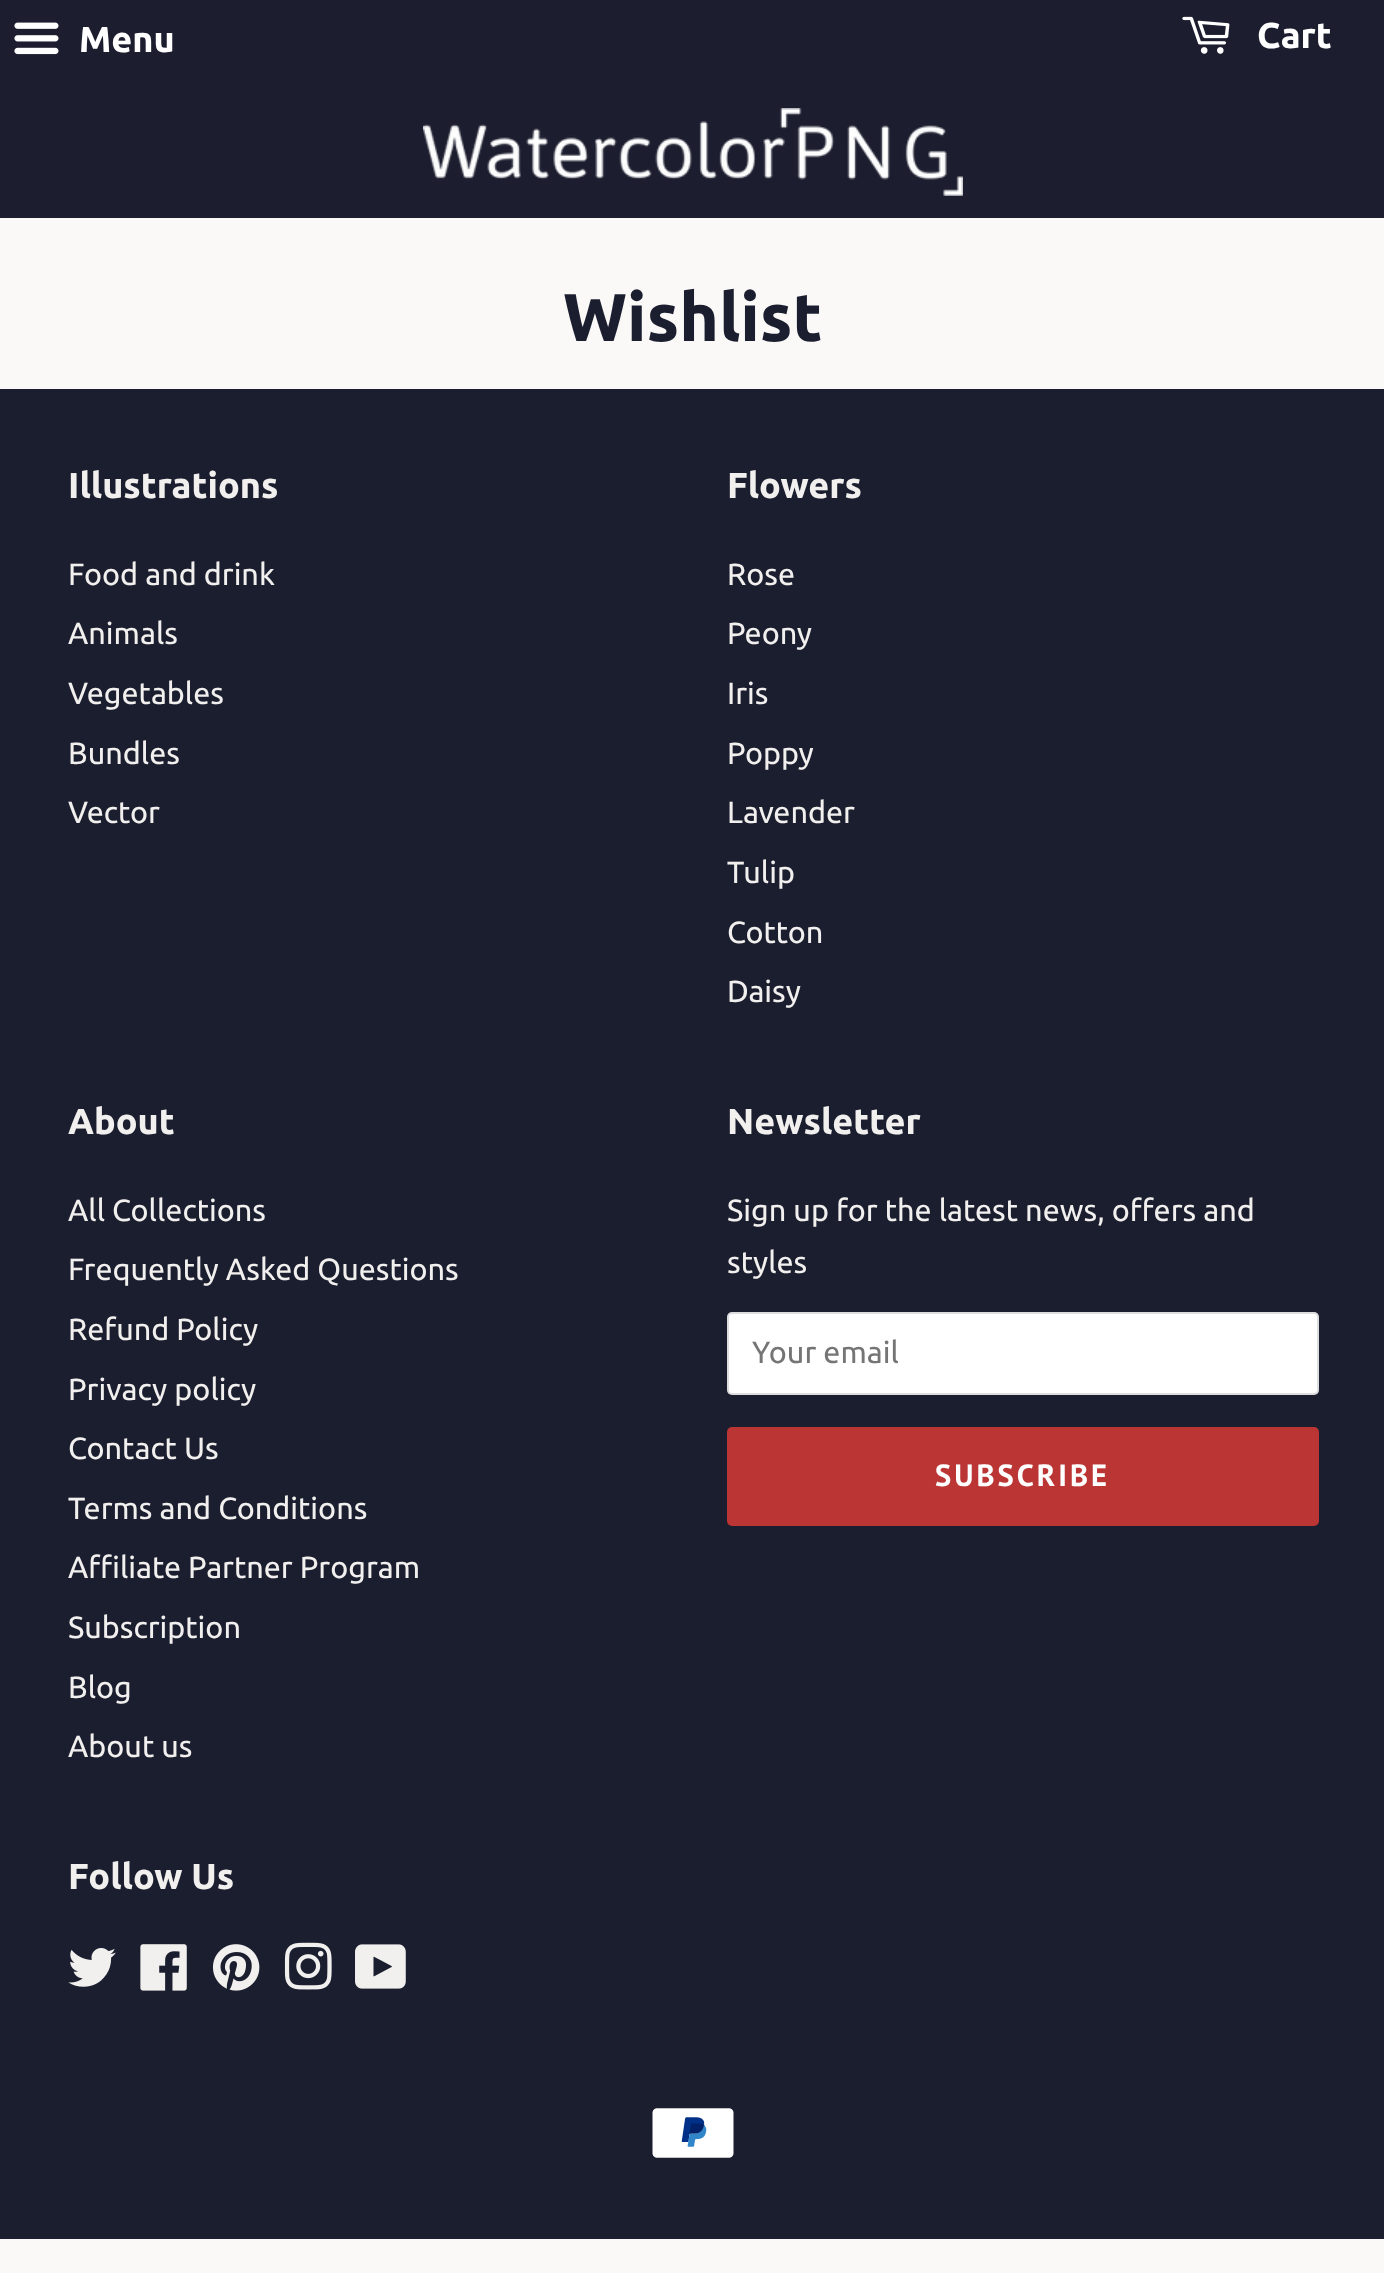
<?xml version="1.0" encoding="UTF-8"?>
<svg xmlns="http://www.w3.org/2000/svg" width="1384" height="2273">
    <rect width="100%" height="100%" fill="#FAF9F7"/>
    <rect x="0" y="0" width="1384" height="218" fill="#1C1E2F"/>
    <image x="14" y="22" width="45" height="33" href="img_01.png"/>
    <text x="79" y="52" font-family="Ubuntu" font-size="36" font-weight="700" fill="#FFFFFF">Menu</text>
    <image x="1182" y="16" width="48" height="38" href="img_02.png"/>
    <text x="1257" y="48" font-family="Ubuntu" font-size="36" font-weight="700" fill="#FFFFFF">Cart</text>
    <image x="423" y="108" width="540" height="88" href="img_03.png"/>
    <text x="563" y="341" font-family="Ubuntu" font-size="67.5" font-weight="700" fill="#1B1E2F">Wishlist</text>
    <rect x="0" y="389" width="1384" height="1850" fill="#1B1E2F"/>
    <text x="68" y="498" font-family="Ubuntu" font-size="36" font-weight="700" fill="#F2F0EE">Illustrations</text>
    <text font-family="Ubuntu" font-size="30.6" fill="#F2F0EE">
        <tspan x="68" y="585">Food and drink</tspan>
        <tspan x="68" y="644">Animals</tspan>
        <tspan x="68" y="704">Vegetables</tspan>
        <tspan x="68" y="764">Bundles</tspan>
        <tspan x="68" y="823">Vector</tspan>
    </text>
    <text x="727" y="498" font-family="Ubuntu" font-size="36" font-weight="700" fill="#F2F0EE">Flowers</text>
    <text font-family="Ubuntu" font-size="30.6" fill="#F2F0EE">
        <tspan x="727" y="585">Rose</tspan>
        <tspan x="727" y="644">Peony</tspan>
        <tspan x="727" y="704">Iris</tspan>
        <tspan x="727" y="764">Poppy</tspan>
        <tspan x="727" y="823">Lavender</tspan>
        <tspan x="727" y="883">Tulip</tspan>
        <tspan x="727" y="943">Cotton</tspan>
        <tspan x="727" y="1002">Daisy</tspan>
    </text>
    <text x="68" y="1134" font-family="Ubuntu" font-size="36" font-weight="700" fill="#F2F0EE">About</text>
    <text font-family="Ubuntu" font-size="30.6" fill="#F2F0EE">
        <tspan x="68" y="1221">All Collections</tspan>
        <tspan x="68" y="1280">Frequently Asked Questions</tspan>
        <tspan x="68" y="1340">Refund Policy</tspan>
        <tspan x="68" y="1400">Privacy policy</tspan>
        <tspan x="68" y="1459">Contact Us</tspan>
        <tspan x="68" y="1519">Terms and Conditions</tspan>
        <tspan x="68" y="1578">Affiliate Partner Program</tspan>
        <tspan x="68" y="1638">Subscription</tspan>
        <tspan x="68" y="1698">Blog</tspan>
        <tspan x="68" y="1757">About us</tspan>
    </text>
    <text x="727" y="1134" font-family="Ubuntu" font-size="36" font-weight="700" fill="#F2F0EE">Newsletter</text>
    <text font-family="Ubuntu" font-size="30.6" fill="#F2F0EE">
        <tspan x="727" y="1221">Sign up for the latest news, offers and</tspan>
        <tspan x="727" y="1273">styles</tspan>
    </text>
    <rect x="727" y="1312" width="592" height="83" rx="5" fill="#FFFFFF"/>
    <rect x="728" y="1313" width="590" height="81" rx="4" fill="none" stroke="#1B1E2F" stroke-opacity="0.15" stroke-width="2"/>
    <text x="752" y="1363" font-family="Ubuntu" font-size="30.6" fill="#757575">Your email</text>
    <rect x="727" y="1427" width="592" height="99" rx="5" fill="#BB3535"/>
    <text x="935" y="1486" font-family="PT Sans" font-size="30.6" font-weight="700" letter-spacing="3" fill="#FFFFFF">SUBSCRIBE</text>
    <text x="68" y="1889" font-family="Ubuntu" font-size="36" font-weight="700" fill="#F2F0EE">Follow Us</text>
    <image x="68" y="1948" width="48" height="39" href="img_04.png"/>
    <image x="140" y="1944" width="47" height="47" href="img_05.png"/>
    <image x="212" y="1944" width="48" height="47" href="img_06.png"/>
    <image x="284" y="1942" width="48" height="48" href="img_07.png"/>
    <image x="355" y="1944" width="51" height="45" href="img_08.png"/>
    <image x="652" y="2108" width="82" height="50" href="img_09.png"/>
</svg>
